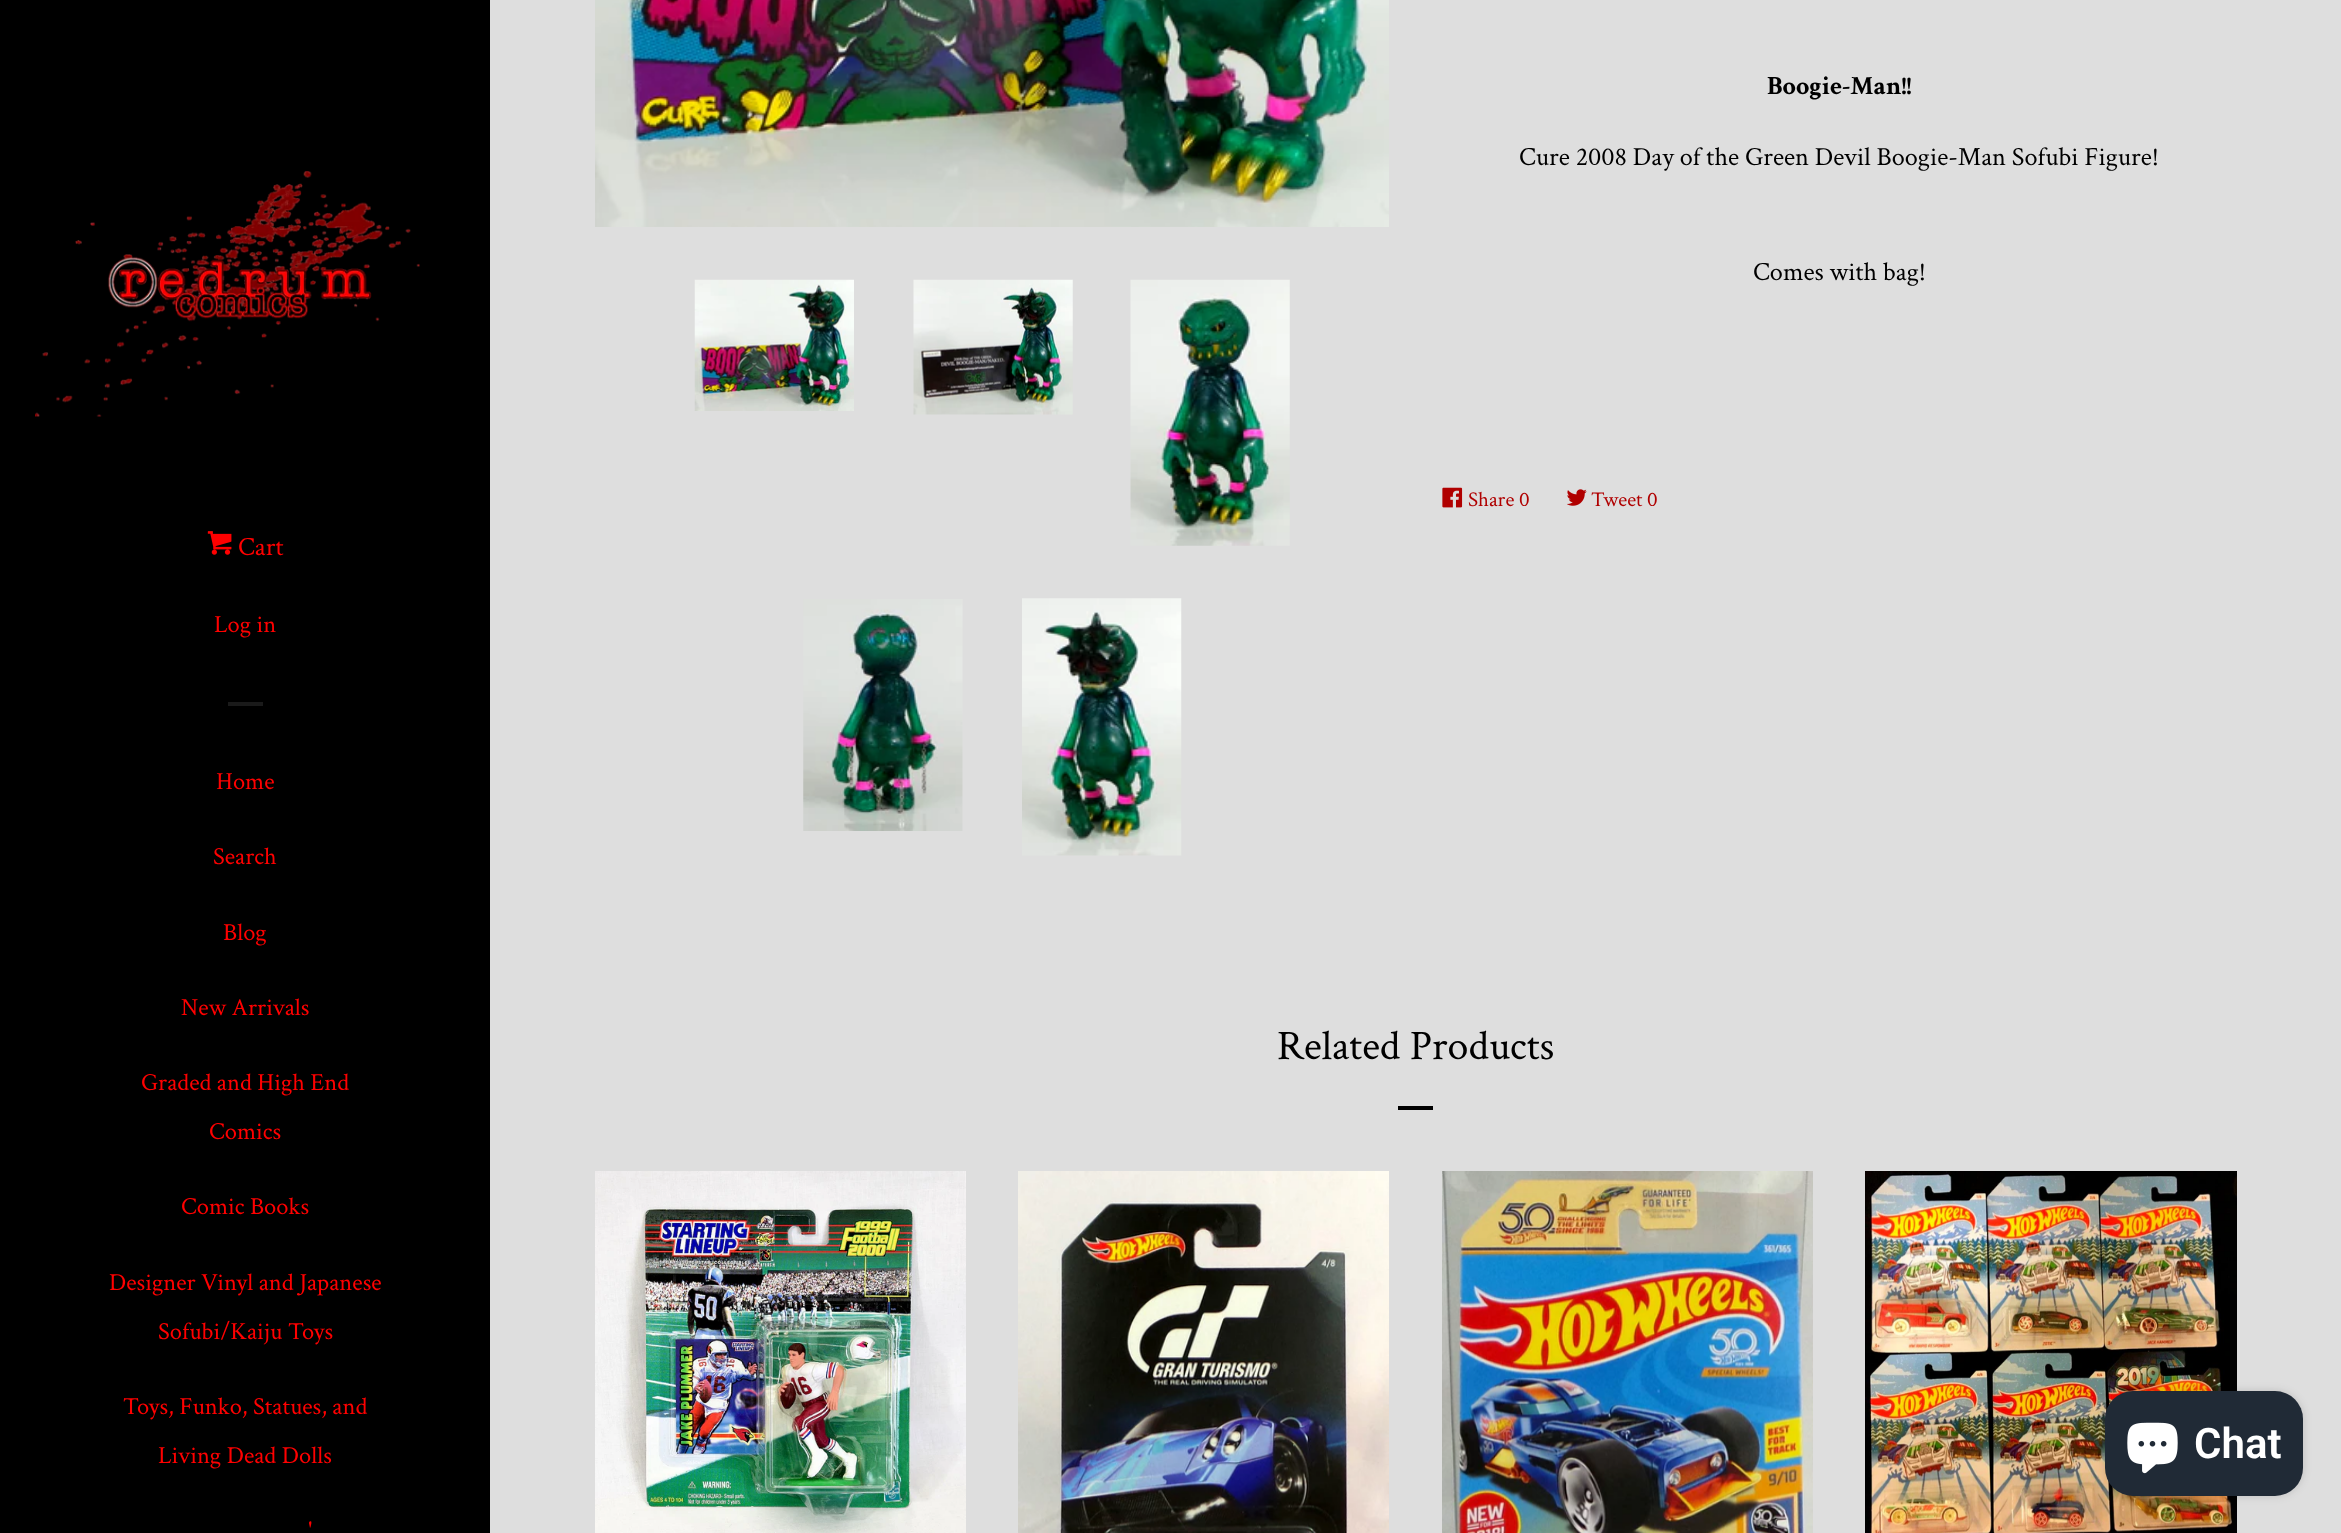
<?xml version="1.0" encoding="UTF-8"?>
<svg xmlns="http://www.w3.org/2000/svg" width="2341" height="1533">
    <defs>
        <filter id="blur1" x="-50%" y="-200%" width="200%" height="500%"><feGaussianBlur stdDeviation="4.5"/></filter>
    </defs>
    <rect width="100%" height="100%" fill="#DEDEDE"/>
    <rect x="0" y="0" width="490" height="1533" fill="#000000"/>
    <image x="35" y="170" width="385" height="247" href="img_01.png"/>
    <image x="207" y="531" width="25" height="24" href="img_02.png"/>
    <text x="238" y="555" font-family="Crimson Text" font-size="26.25" fill="#FF0000">Cart</text>
    <text x="214" y="632" font-family="Crimson Text" font-size="24.5" fill="#FF0000">Log in</text>
    <rect x="228" y="702" width="35" height="4" fill="#1A1A1A"/>
    <text x="216" y="789" font-family="Crimson Text" font-size="24.5" fill="#FF0000">Home</text>
    <text x="213" y="864" font-family="Crimson Text" font-size="24.5" fill="#FF0000">Search</text>
    <text x="223" y="940" font-family="Crimson Text" font-size="24.5" fill="#FF0000">Blog</text>
    <text x="181" y="1015" font-family="Crimson Text" font-size="24.5" fill="#FF0000">New Arrivals</text>
    <text x="141" y="1090" font-family="Crimson Text" font-size="24.5" fill="#FF0000">Graded and High End</text>
    <text x="209" y="1139" font-family="Crimson Text" font-size="24.5" fill="#FF0000">Comics</text>
    <text x="181" y="1214" font-family="Crimson Text" font-size="24.5" fill="#FF0000">Comic Books</text>
    <text x="109" y="1290" font-family="Crimson Text" font-size="24.5" fill="#FF0000">Designer Vinyl and Japanese</text>
    <text x="158" y="1339" font-family="Crimson Text" font-size="24.5" fill="#FF0000">Sofubi/Kaiju Toys</text>
    <text x="123" y="1414" font-family="Crimson Text" font-size="24.5" fill="#FF0000">Toys, Funko, Statues, and</text>
    <text x="158" y="1463" font-family="Crimson Text" font-size="24.5" fill="#FF0000">Living Dead Dolls</text>
    <text x="308" y="1538" font-family="Crimson Text" font-size="24.5" fill="#FF0000">'</text>
    <image x="595" y="0" width="794" height="227" href="img_03.png"/>
    <image x="694" y="279" width="160" height="132" href="img_04.png"/>
    <image x="913" y="279" width="160" height="136" href="img_05.png"/>
    <image x="1130" y="279" width="160" height="267" href="img_06.png"/>
    <image x="803" y="599" width="160" height="232" href="img_07.png"/>
    <image x="1022" y="598" width="160" height="258" href="img_08.png"/>
    <text x="1767" y="94" font-family="Crimson Text" font-size="26.25" font-weight="700" fill="#000000">Boogie-Man!!</text>
    <text x="1519" y="165" font-family="Crimson Text" font-size="26.25" fill="#000000">Cure 2008 Day of the Green Devil Boogie-Man Sofubi Figure!</text>
    <text x="1753" y="280" font-family="Crimson Text" font-size="26.25" fill="#000000">Comes with bag!</text>
    <image x="1442" y="487" width="21" height="21" href="img_09.png"/>
    <text x="1468" y="506" font-family="Crimson Text" font-size="21" fill="#B00000">Share 0</text>
    <image x="1567" y="489" width="20" height="17" href="img_10.png"/>
    <text x="1591" y="506" font-family="Crimson Text" font-size="21" fill="#B00000">Tweet 0</text>
    <text x="1277" y="1059" font-family="Crimson Text" font-size="42" fill="#000000">Related Products</text>
    <rect x="1398" y="1106" width="35" height="4" fill="#000000"/>
    <image x="595" y="1171" width="371" height="362" href="img_11.png"/>
    <image x="1018" y="1171" width="371" height="362" href="img_12.png"/>
    <image x="1442" y="1171" width="371" height="362" href="img_13.png"/>
    <image x="1865" y="1171" width="372" height="362" href="img_14.png"/>
    <rect x="2105" y="1391" width="198" height="105" rx="28" fill="#000000" fill-opacity="0.15" filter="url(#blur1)"/>
    <rect x="2105" y="1391" width="198" height="105" rx="28" fill="#202A36"/>
    <image x="2127" y="1422" width="51" height="52" href="img_15.png"/>
    <text x="2194" y="1458" font-family="Roboto" font-size="42" font-weight="600" fill="#FFFFFF">Chat</text>
</svg>
